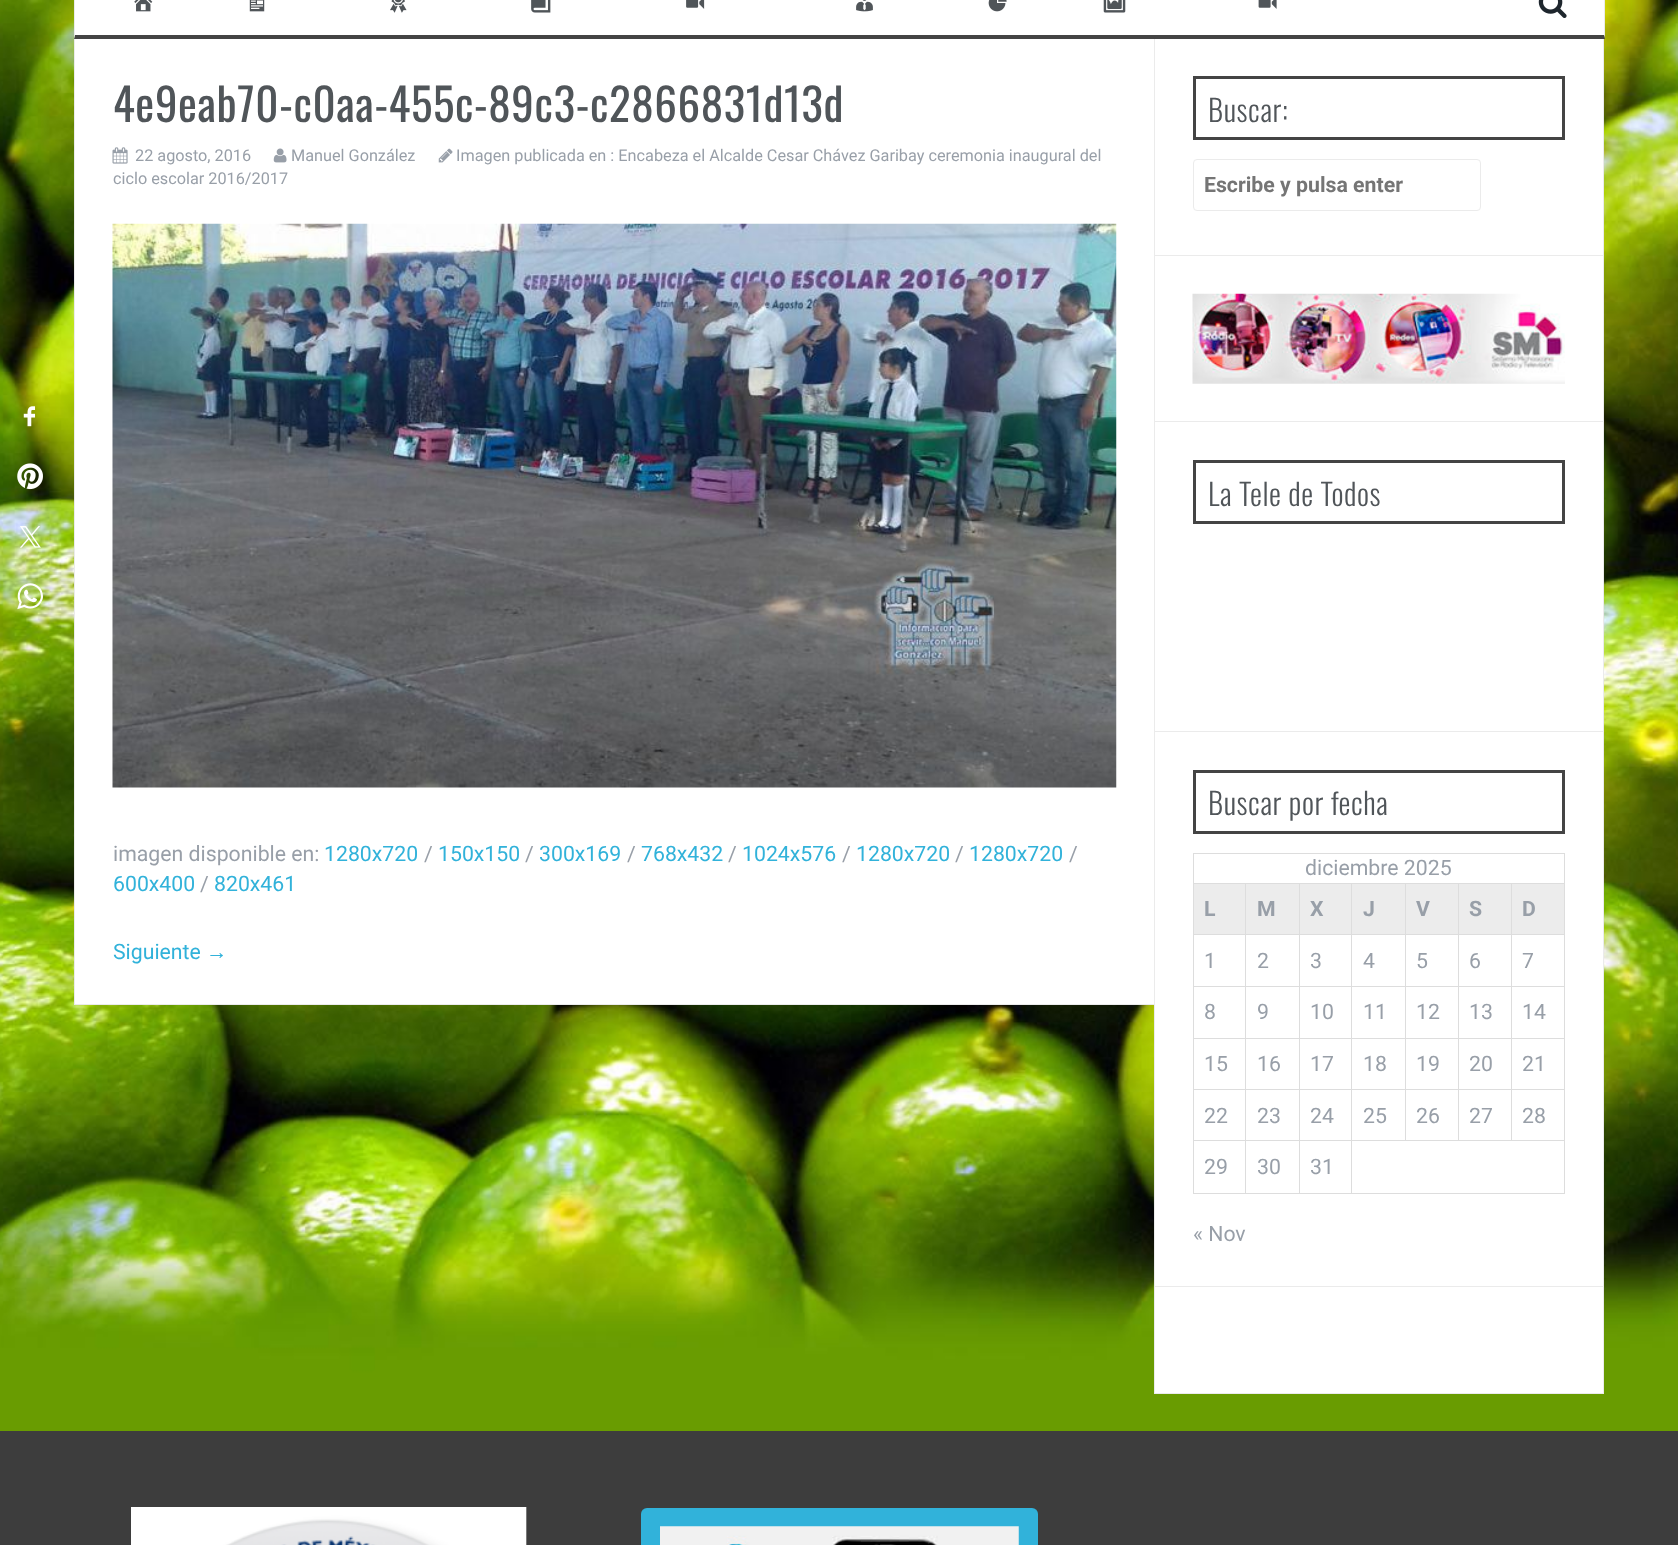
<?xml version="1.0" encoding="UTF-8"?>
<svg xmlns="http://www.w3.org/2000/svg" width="1678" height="1545">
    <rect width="100%" height="100%" fill="#FFFFFF"/>
    <image x="0" y="0" width="1678" height="1431" href="img_01.png"/>
    <image x="23" y="406" width="13" height="21" href="img_02.png"/>
    <image x="17" y="463" width="26" height="27" href="img_03.png"/>
    <image x="20" y="526" width="21" height="22" href="img_04.png"/>
    <image x="17" y="583" width="26" height="27" href="img_05.png"/>
    <rect x="75" y="0" width="1529" height="35" fill="#FFFFFF"/>
    <path d="M 1605 -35 V 39 L 1604 35 V -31 Z" fill="#EBEBEB"/>
    <path d="M 1605 39 H 74 L 75 35 H 1604 Z" fill="#444444"/>
    <path d="M 74 39 V -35 L 75 -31 V 35 Z" fill="#EBEBEB"/>
    <image x="134" y="0" width="19" height="12" href="img_06.png"/>
    <image x="249" y="0" width="16" height="12" href="img_07.png"/>
    <image x="390" y="0" width="17" height="13" href="img_08.png"/>
    <image x="531" y="0" width="20" height="13" href="img_09.png"/>
    <image x="686" y="0" width="19" height="9" href="img_10.png"/>
    <image x="856" y="0" width="17" height="12" href="img_11.png"/>
    <image x="988" y="0" width="19" height="12" href="img_12.png"/>
    <image x="1103" y="0" width="23" height="13" href="img_13.png"/>
    <image x="1258" y="0" width="19" height="9" href="img_14.png"/>
    <image x="1538" y="0" width="29" height="18" href="img_15.png"/>
    <rect x="75" y="39" width="1079" height="965" fill="#FFFFFF"/>
    <rect x="74" y="1004" width="1081" height="1" fill="#EBEBEB"/>
    <rect x="74" y="39" width="1" height="966" fill="#EBEBEB"/>
    <text x="113" y="122" font-family="Oswald" font-size="45" letter-spacing="0.6" fill="#505559">4e9eab70-c0aa-455c-89c3-c2866831d13d</text>
    <image x="438" y="148" width="15" height="15" href="img_16.png"/>
    <text x="456" y="161" font-family="Roboto" font-size="16.25" fill="#989FA8">Imagen publicada en : Encabeza el Alcalde Cesar Chávez Garibay ceremonia inaugural del</text>
    <text x="113" y="184" font-family="Roboto" font-size="16.25" fill="#989FA8">ciclo escolar 2016/2017</text>
    <image x="112" y="147" width="16" height="17" href="img_17.png"/>
    <text x="135" y="161" font-family="Roboto" font-size="16.25" fill="#989FA8">22 agosto, 2016</text>
    <image x="273" y="148" width="14" height="15" href="img_18.png"/>
    <text x="291" y="161" font-family="Roboto" font-size="16.25" fill="#989FA8">Manuel González</text>
    <image x="112" y="223" width="1005" height="565" href="img_19.png"/>
    <text x="113" y="861" font-family="Roboto" font-size="21.25" fill="#989FA8">imagen disponible en:</text>
    <text x="324" y="861" font-family="Roboto" font-size="21.25" fill="#31B2DA">1280x720</text>
    <text x="424" y="861" font-family="Roboto" font-size="21.25" fill="#989FA8">/</text>
    <text x="438" y="861" font-family="Roboto" font-size="21.25" fill="#31B2DA">150x150</text>
    <text x="525" y="861" font-family="Roboto" font-size="21.25" fill="#989FA8">/</text>
    <text x="539" y="861" font-family="Roboto" font-size="21.25" fill="#31B2DA">300x169</text>
    <text x="627" y="861" font-family="Roboto" font-size="21.25" fill="#989FA8">/</text>
    <text x="641" y="861" font-family="Roboto" font-size="21.25" fill="#31B2DA">768x432</text>
    <text x="728" y="861" font-family="Roboto" font-size="21.25" fill="#989FA8">/</text>
    <text x="742" y="861" font-family="Roboto" font-size="21.25" fill="#31B2DA">1024x576</text>
    <text x="842" y="861" font-family="Roboto" font-size="21.25" fill="#989FA8">/</text>
    <text x="856" y="861" font-family="Roboto" font-size="21.25" fill="#31B2DA">1280x720</text>
    <text x="955" y="861" font-family="Roboto" font-size="21.25" fill="#989FA8">/</text>
    <text x="969" y="861" font-family="Roboto" font-size="21.25" fill="#31B2DA">1280x720</text>
    <text x="1069" y="861" font-family="Roboto" font-size="21.25" fill="#989FA8">/</text>
    <text x="113" y="891" font-family="Roboto" font-size="21.25" fill="#31B2DA">600x400</text>
    <text x="200" y="891" font-family="Roboto" font-size="21.25" fill="#989FA8">/</text>
    <text x="214" y="891" font-family="Roboto" font-size="21.25" fill="#31B2DA">820x461</text>
    <text x="113" y="959" font-family="Roboto" font-size="21.25" fill="#31B2DA">Siguiente</text>
    <text x="206" y="959" font-family="Liberation Sans" font-size="21.25" fill="#31B2DA">→</text>
    <rect x="1155" y="39" width="448" height="216" fill="#FFFFFF"/>
    <rect x="1603" y="39" width="1" height="1355" fill="#EBEBEB"/>
    <rect x="1154" y="255" width="450" height="1" fill="#EBEBEB"/>
    <rect x="1154" y="39" width="1" height="217" fill="#EBEBEB"/>
    <rect x="1194.5" y="77.5" width="369" height="61" fill="none" stroke="#444444" stroke-width="3"/>
    <text x="1208" y="122" font-family="Oswald" font-size="30" font-weight="300" letter-spacing="0.6" fill="#505559">Buscar:</text>
    <rect x="1193.5" y="159.5" width="287" height="51" rx="3.5" fill="none" stroke="#EBEBEB"/>
    <text x="1204" y="192" font-family="Roboto" font-size="21.25" font-weight="700" fill="#757575">Escribe y pulsa enter</text>
    <rect x="1155" y="256" width="448" height="1137" fill="#FFFFFF"/>
    <rect x="1154" y="421" width="450" height="1" fill="#EBEBEB"/>
    <rect x="1154" y="256" width="1" height="167" fill="#EBEBEB"/>
    <image x="1192" y="293" width="373" height="91" href="img_20.png"/>
    <rect x="1154" y="731" width="450" height="1" fill="#EBEBEB"/>
    <rect x="1154" y="423" width="1" height="310" fill="#EBEBEB"/>
    <rect x="1194.5" y="461.5" width="369" height="61" fill="none" stroke="#444444" stroke-width="3"/>
    <text x="1208" y="506" font-family="Oswald" font-size="30" font-weight="300" letter-spacing="0.6" fill="#505559">La Tele de Todos</text>
    <rect x="1154" y="1286" width="450" height="1" fill="#EBEBEB"/>
    <rect x="1154" y="733" width="1" height="555" fill="#EBEBEB"/>
    <rect x="1194.5" y="771.5" width="369" height="61" fill="none" stroke="#444444" stroke-width="3"/>
    <text x="1208" y="815" font-family="Oswald" font-size="30" font-weight="300" letter-spacing="0.6" fill="#505559">Buscar por fecha</text>
    <rect x="1193" y="853" width="372" height="1" fill="#DDDDDD"/>
    <rect x="1564" y="853" width="1" height="341" fill="#DDDDDD"/>
    <rect x="1193" y="1193" width="372" height="1" fill="#DDDDDD"/>
    <rect x="1193" y="853" width="1" height="341" fill="#DDDDDD"/>
    <text x="1305" y="875" font-family="Roboto" font-size="21.25" fill="#989FA8">diciembre 2025</text>
    <rect x="1194" y="884" width="51" height="50" fill="#ECECEC"/>
    <rect x="1511" y="883" width="54" height="1" fill="#DDDDDD"/>
    <rect x="1511" y="934" width="54" height="1" fill="#DDDDDD"/>
    <rect x="1511" y="986" width="54" height="1" fill="#DDDDDD"/>
    <rect x="1511" y="1038" width="54" height="1" fill="#DDDDDD"/>
    <rect x="1511" y="1089" width="54" height="1" fill="#DDDDDD"/>
    <rect x="1351" y="1140" width="214" height="1" fill="#DDDDDD"/>
    <rect x="1511" y="1089" width="1" height="52" fill="#DDDDDD"/>
    <rect x="1458" y="1089" width="55" height="1" fill="#DDDDDD"/>
    <rect x="1511" y="1038" width="1" height="52" fill="#DDDDDD"/>
    <rect x="1458" y="1038" width="55" height="1" fill="#DDDDDD"/>
    <rect x="1511" y="986" width="1" height="53" fill="#DDDDDD"/>
    <rect x="1458" y="986" width="55" height="1" fill="#DDDDDD"/>
    <rect x="1511" y="934" width="1" height="54" fill="#DDDDDD"/>
    <rect x="1458" y="934" width="55" height="1" fill="#DDDDDD"/>
    <rect x="1511" y="883" width="1" height="52" fill="#DDDDDD"/>
    <rect x="1458" y="883" width="55" height="1" fill="#DDDDDD"/>
    <rect x="1458" y="1089" width="1" height="52" fill="#DDDDDD"/>
    <rect x="1405" y="1089" width="54" height="1" fill="#DDDDDD"/>
    <rect x="1458" y="1038" width="1" height="52" fill="#DDDDDD"/>
    <rect x="1405" y="1038" width="54" height="1" fill="#DDDDDD"/>
    <rect x="1458" y="986" width="1" height="53" fill="#DDDDDD"/>
    <rect x="1405" y="986" width="54" height="1" fill="#DDDDDD"/>
    <rect x="1458" y="934" width="1" height="54" fill="#DDDDDD"/>
    <rect x="1405" y="934" width="54" height="1" fill="#DDDDDD"/>
    <rect x="1458" y="883" width="1" height="52" fill="#DDDDDD"/>
    <rect x="1405" y="883" width="54" height="1" fill="#DDDDDD"/>
    <rect x="1405" y="1089" width="1" height="52" fill="#DDDDDD"/>
    <rect x="1351" y="1089" width="55" height="1" fill="#DDDDDD"/>
    <rect x="1405" y="1038" width="1" height="52" fill="#DDDDDD"/>
    <rect x="1351" y="1038" width="55" height="1" fill="#DDDDDD"/>
    <rect x="1405" y="986" width="1" height="53" fill="#DDDDDD"/>
    <rect x="1351" y="986" width="55" height="1" fill="#DDDDDD"/>
    <rect x="1405" y="934" width="1" height="54" fill="#DDDDDD"/>
    <rect x="1351" y="934" width="55" height="1" fill="#DDDDDD"/>
    <rect x="1405" y="883" width="1" height="52" fill="#DDDDDD"/>
    <rect x="1351" y="883" width="55" height="1" fill="#DDDDDD"/>
    <rect x="1300" y="884" width="105" height="50" fill="#ECECEC"/>
    <rect x="1351" y="1140" width="1" height="54" fill="#DDDDDD"/>
    <rect x="1299" y="1140" width="54" height="1" fill="#DDDDDD"/>
    <rect x="1351" y="1089" width="1" height="52" fill="#DDDDDD"/>
    <rect x="1299" y="1089" width="54" height="1" fill="#DDDDDD"/>
    <rect x="1351" y="1038" width="1" height="52" fill="#DDDDDD"/>
    <rect x="1299" y="1038" width="54" height="1" fill="#DDDDDD"/>
    <rect x="1351" y="986" width="1" height="53" fill="#DDDDDD"/>
    <rect x="1299" y="986" width="54" height="1" fill="#DDDDDD"/>
    <rect x="1351" y="934" width="1" height="54" fill="#DDDDDD"/>
    <rect x="1299" y="934" width="54" height="1" fill="#DDDDDD"/>
    <rect x="1351" y="883" width="1" height="52" fill="#DDDDDD"/>
    <rect x="1299" y="883" width="54" height="1" fill="#DDDDDD"/>
    <rect x="1299" y="1140" width="1" height="54" fill="#DDDDDD"/>
    <rect x="1245" y="1140" width="55" height="1" fill="#DDDDDD"/>
    <rect x="1299" y="1089" width="1" height="52" fill="#DDDDDD"/>
    <rect x="1245" y="1089" width="55" height="1" fill="#DDDDDD"/>
    <rect x="1299" y="1038" width="1" height="52" fill="#DDDDDD"/>
    <rect x="1245" y="1038" width="55" height="1" fill="#DDDDDD"/>
    <rect x="1299" y="986" width="1" height="53" fill="#DDDDDD"/>
    <rect x="1245" y="986" width="55" height="1" fill="#DDDDDD"/>
    <rect x="1299" y="934" width="1" height="54" fill="#DDDDDD"/>
    <rect x="1245" y="934" width="55" height="1" fill="#DDDDDD"/>
    <rect x="1299" y="883" width="1" height="52" fill="#DDDDDD"/>
    <rect x="1245" y="883" width="55" height="1" fill="#DDDDDD"/>
    <rect x="1245" y="1140" width="1" height="54" fill="#DDDDDD"/>
    <rect x="1193" y="1140" width="53" height="1" fill="#DDDDDD"/>
    <rect x="1245" y="1089" width="1" height="52" fill="#DDDDDD"/>
    <rect x="1193" y="1089" width="53" height="1" fill="#DDDDDD"/>
    <rect x="1245" y="1038" width="1" height="52" fill="#DDDDDD"/>
    <rect x="1193" y="1038" width="53" height="1" fill="#DDDDDD"/>
    <rect x="1245" y="986" width="1" height="53" fill="#DDDDDD"/>
    <rect x="1193" y="986" width="53" height="1" fill="#DDDDDD"/>
    <rect x="1245" y="934" width="1" height="54" fill="#DDDDDD"/>
    <rect x="1193" y="934" width="53" height="1" fill="#DDDDDD"/>
    <rect x="1245" y="883" width="1" height="52" fill="#DDDDDD"/>
    <rect x="1193" y="883" width="53" height="1" fill="#DDDDDD"/>
    <text x="1204" y="916" font-family="Roboto" font-size="21.25" font-weight="700" fill="#989FA8">L</text>
    <rect x="1246" y="884" width="53" height="50" fill="#ECECEC"/>
    <text x="1257" y="916" font-family="Roboto" font-size="21.25" font-weight="700" fill="#989FA8">M</text>
    <text x="1310" y="916" font-family="Roboto" font-size="21.25" font-weight="700" fill="#989FA8">X</text>
    <text x="1363" y="916" font-family="Roboto" font-size="21.25" font-weight="700" fill="#989FA8">J</text>
    <rect x="1406" y="884" width="52" height="50" fill="#ECECEC"/>
    <text x="1416" y="916" font-family="Roboto" font-size="21.25" font-weight="700" fill="#989FA8">V</text>
    <rect x="1459" y="884" width="52" height="50" fill="#ECECEC"/>
    <text x="1469" y="916" font-family="Roboto" font-size="21.25" font-weight="700" fill="#989FA8">S</text>
    <rect x="1512" y="884" width="52" height="50" fill="#ECECEC"/>
    <text x="1522" y="916" font-family="Roboto" font-size="21.25" font-weight="700" fill="#989FA8">D</text>
    <text x="1204" y="968" font-family="Roboto" font-size="21.25" fill="#989FA8">1</text>
    <text x="1257" y="968" font-family="Roboto" font-size="21.25" fill="#989FA8">2</text>
    <text x="1310" y="968" font-family="Roboto" font-size="21.25" fill="#989FA8">3</text>
    <text x="1363" y="968" font-family="Roboto" font-size="21.25" fill="#989FA8">4</text>
    <text x="1416" y="968" font-family="Roboto" font-size="21.25" fill="#989FA8">5</text>
    <text x="1469" y="968" font-family="Roboto" font-size="21.25" fill="#989FA8">6</text>
    <text x="1522" y="968" font-family="Roboto" font-size="21.25" fill="#989FA8">7</text>
    <text x="1204" y="1019" font-family="Roboto" font-size="21.25" fill="#989FA8">8</text>
    <text x="1257" y="1019" font-family="Roboto" font-size="21.25" fill="#989FA8">9</text>
    <text x="1310" y="1019" font-family="Roboto" font-size="21.25" fill="#989FA8">10</text>
    <text x="1363" y="1019" font-family="Roboto" font-size="21.25" fill="#989FA8">11</text>
    <text x="1416" y="1019" font-family="Roboto" font-size="21.25" fill="#989FA8">12</text>
    <text x="1469" y="1019" font-family="Roboto" font-size="21.25" fill="#989FA8">13</text>
    <text x="1522" y="1019" font-family="Roboto" font-size="21.25" fill="#989FA8">14</text>
    <text x="1204" y="1071" font-family="Roboto" font-size="21.25" fill="#989FA8">15</text>
    <text x="1257" y="1071" font-family="Roboto" font-size="21.25" fill="#989FA8">16</text>
    <text x="1310" y="1071" font-family="Roboto" font-size="21.25" fill="#989FA8">17</text>
    <text x="1363" y="1071" font-family="Roboto" font-size="21.25" fill="#989FA8">18</text>
    <text x="1416" y="1071" font-family="Roboto" font-size="21.25" fill="#989FA8">19</text>
    <text x="1469" y="1071" font-family="Roboto" font-size="21.25" fill="#989FA8">20</text>
    <text x="1522" y="1071" font-family="Roboto" font-size="21.25" fill="#989FA8">21</text>
    <text x="1204" y="1123" font-family="Roboto" font-size="21.25" fill="#989FA8">22</text>
    <text x="1257" y="1123" font-family="Roboto" font-size="21.25" fill="#989FA8">23</text>
    <text x="1310" y="1123" font-family="Roboto" font-size="21.25" fill="#989FA8">24</text>
    <text x="1363" y="1123" font-family="Roboto" font-size="21.25" fill="#989FA8">25</text>
    <text x="1416" y="1123" font-family="Roboto" font-size="21.25" fill="#989FA8">26</text>
    <text x="1469" y="1123" font-family="Roboto" font-size="21.25" fill="#989FA8">27</text>
    <text x="1522" y="1123" font-family="Roboto" font-size="21.25" fill="#989FA8">28</text>
    <text x="1204" y="1174" font-family="Roboto" font-size="21.25" fill="#989FA8">29</text>
    <text x="1257" y="1174" font-family="Roboto" font-size="21.25" fill="#989FA8">30</text>
    <text x="1310" y="1174" font-family="Roboto" font-size="21.25" fill="#989FA8">31</text>
    <text x="1193" y="1241" font-family="Roboto" font-size="21.25" fill="#989FA8">« Nov</text>
    <rect x="1154" y="1393" width="450" height="1" fill="#EBEBEB"/>
    <rect x="1154" y="1288" width="1" height="106" fill="#EBEBEB"/>
    <rect x="0" y="1431" width="1678" height="114" fill="#3D3D3D"/>
    <image x="131" y="1507" width="396" height="38" href="img_21.png"/>
    <rect x="641" y="1508" width="397" height="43" rx="6" fill="#31B2DA"/>
    <image x="660" y="1526" width="359" height="19" href="img_22.png"/>
</svg>
